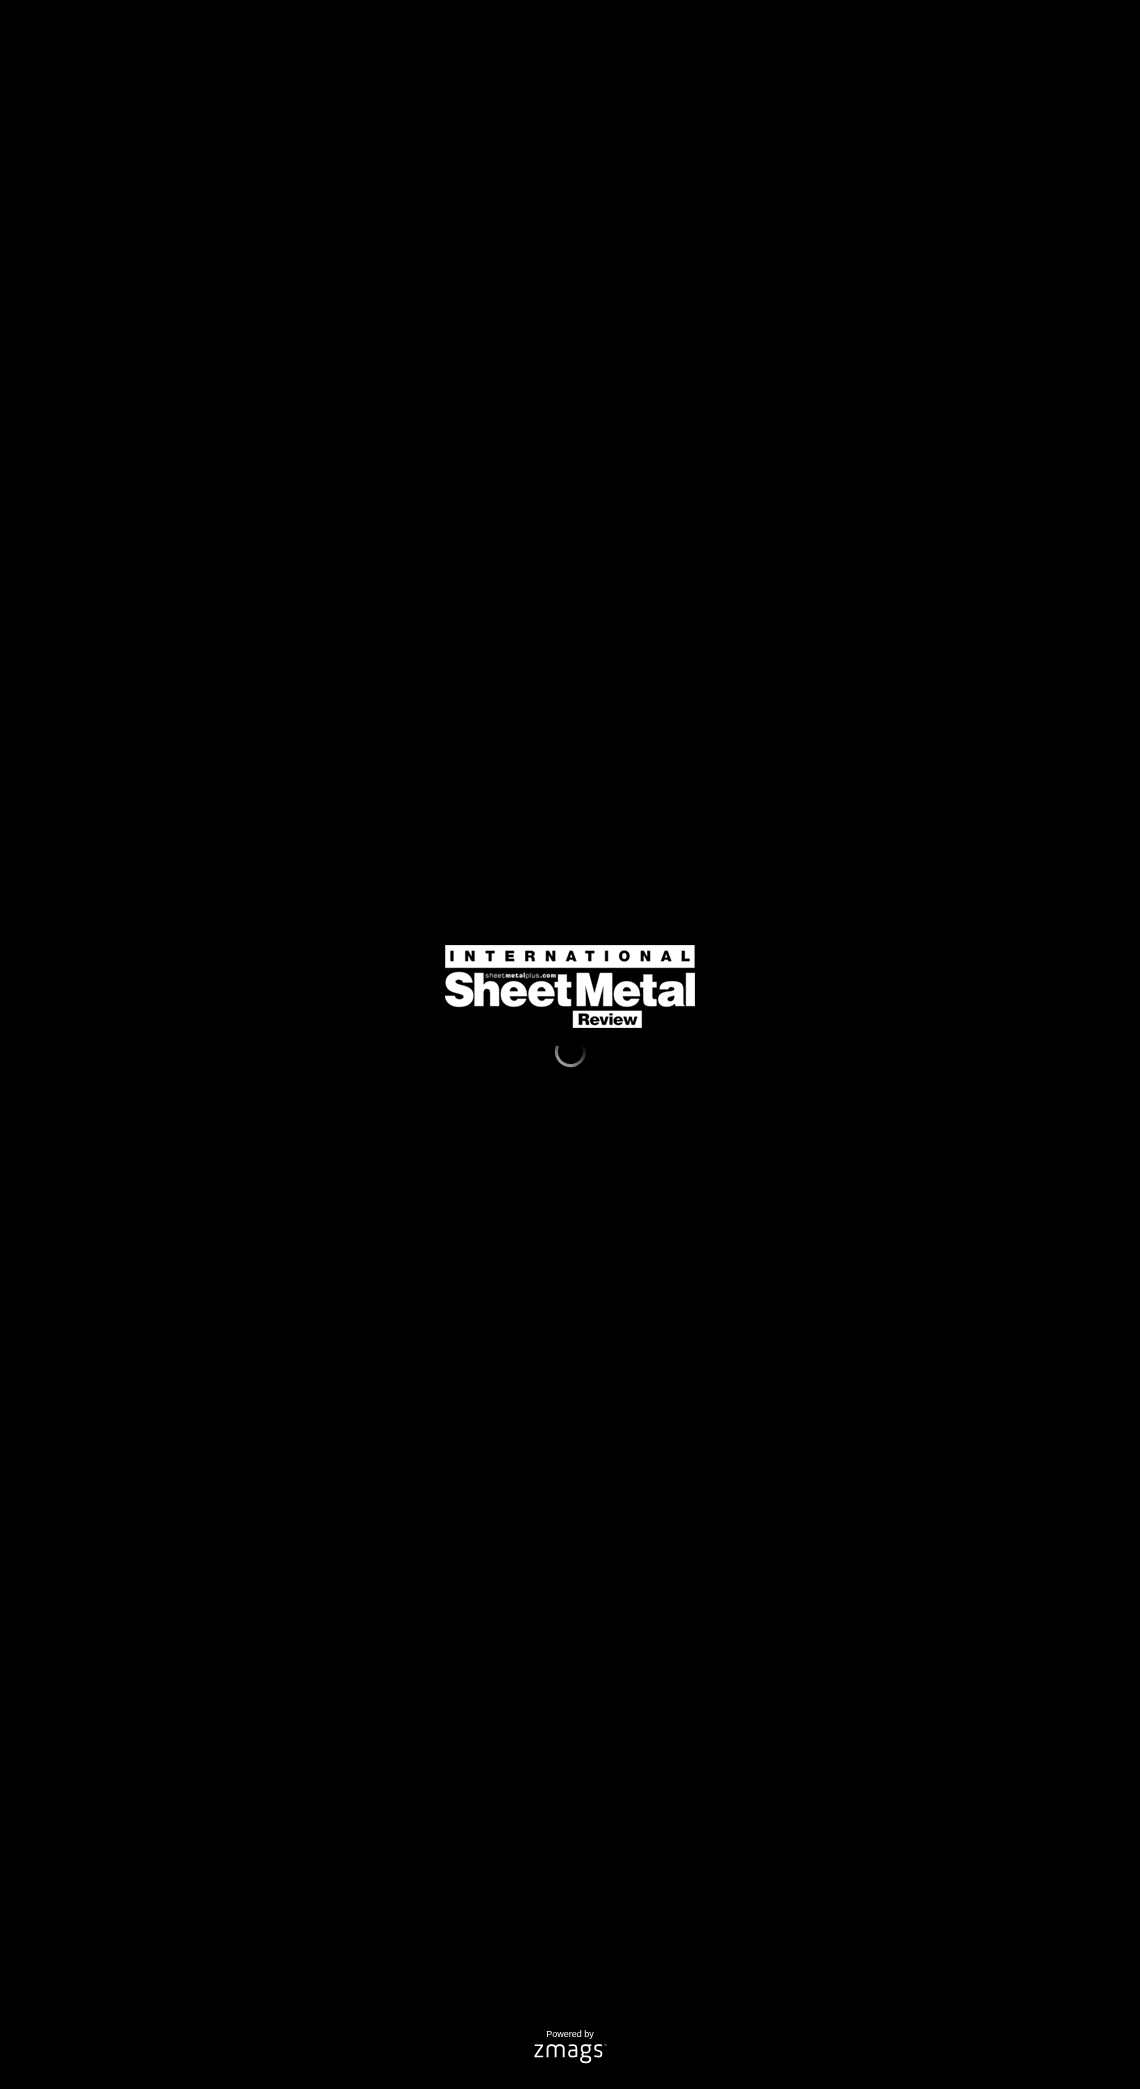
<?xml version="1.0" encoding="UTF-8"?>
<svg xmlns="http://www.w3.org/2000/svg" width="1140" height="2089">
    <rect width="100%" height="100%" fill="#FFFFFF"/>
    <image x="0" y="0" width="1140" height="2089" href="img_01.png"/>
</svg>
